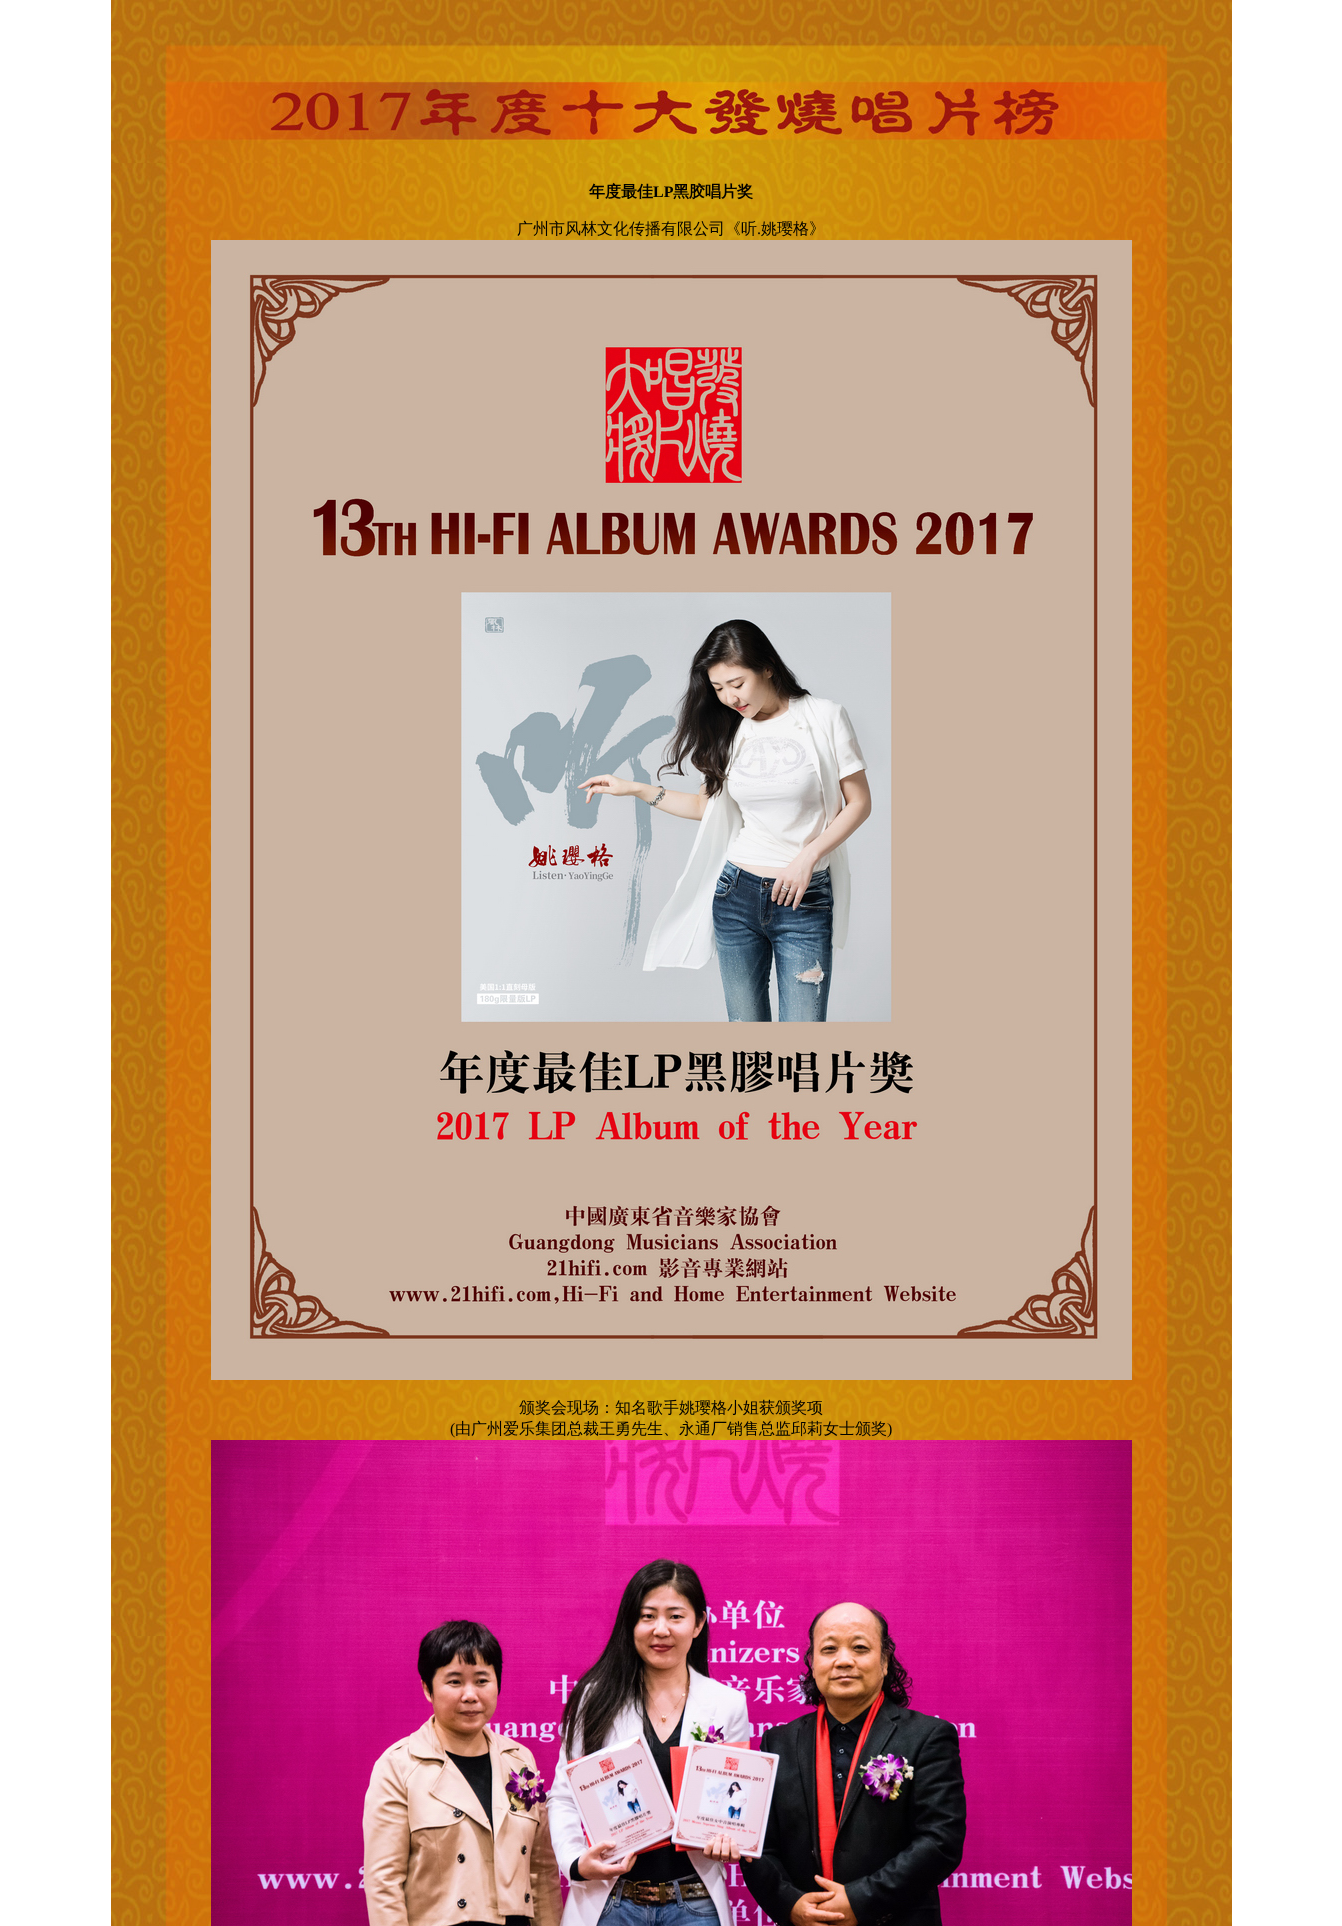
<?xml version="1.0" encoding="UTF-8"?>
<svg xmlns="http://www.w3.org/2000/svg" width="1342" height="1926">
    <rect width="100%" height="100%" fill="#FFFFFF"/>
    <image x="111" y="163" width="1121" height="1763" href="img_01.png"/>
    <image x="111" y="0" width="1121" height="163" href="img_02.png"/>
    <text x="589" y="197" font-family="WenQuanYi Zen Hei" font-size="16" font-weight="700" fill="#000000">年度最佳</text>
    <text x="653" y="197" font-family="Liberation Serif" font-size="16" font-weight="700" fill="#000000">LP</text>
    <text x="673" y="197" font-family="WenQuanYi Zen Hei" font-size="16" font-weight="700" fill="#000000">黑胶唱片奖</text>
    <text x="517" y="234" font-family="WenQuanYi Zen Hei" font-size="16" font-weight="500" fill="#000000">广州市风林文化传播有限公司《听</text>
    <text x="757" y="234" font-family="Liberation Serif" font-size="16" fill="#000000">.</text>
    <text x="761" y="234" font-family="WenQuanYi Zen Hei" font-size="16" font-weight="500" fill="#000000">姚璎格》</text>
    <image x="211" y="240" width="921" height="1140" href="img_03.png"/>
    <text x="519" y="1413" font-family="WenQuanYi Zen Hei" font-size="16" font-weight="500" fill="#000000">颁奖会现场：知名歌手姚璎格小姐获颁奖项</text>
    <text x="450" y="1434" font-family="Liberation Serif" font-size="16" fill="#000000">(</text>
    <text x="455" y="1434" font-family="WenQuanYi Zen Hei" font-size="16" font-weight="500" fill="#000000">由广州爱乐集团总裁王勇先生、永通厂销售总监邱莉女士颁奖</text>
    <text x="887" y="1434" font-family="Liberation Serif" font-size="16" fill="#000000">)</text>
    <image x="211" y="1440" width="921" height="486" href="img_04.png"/>
</svg>
